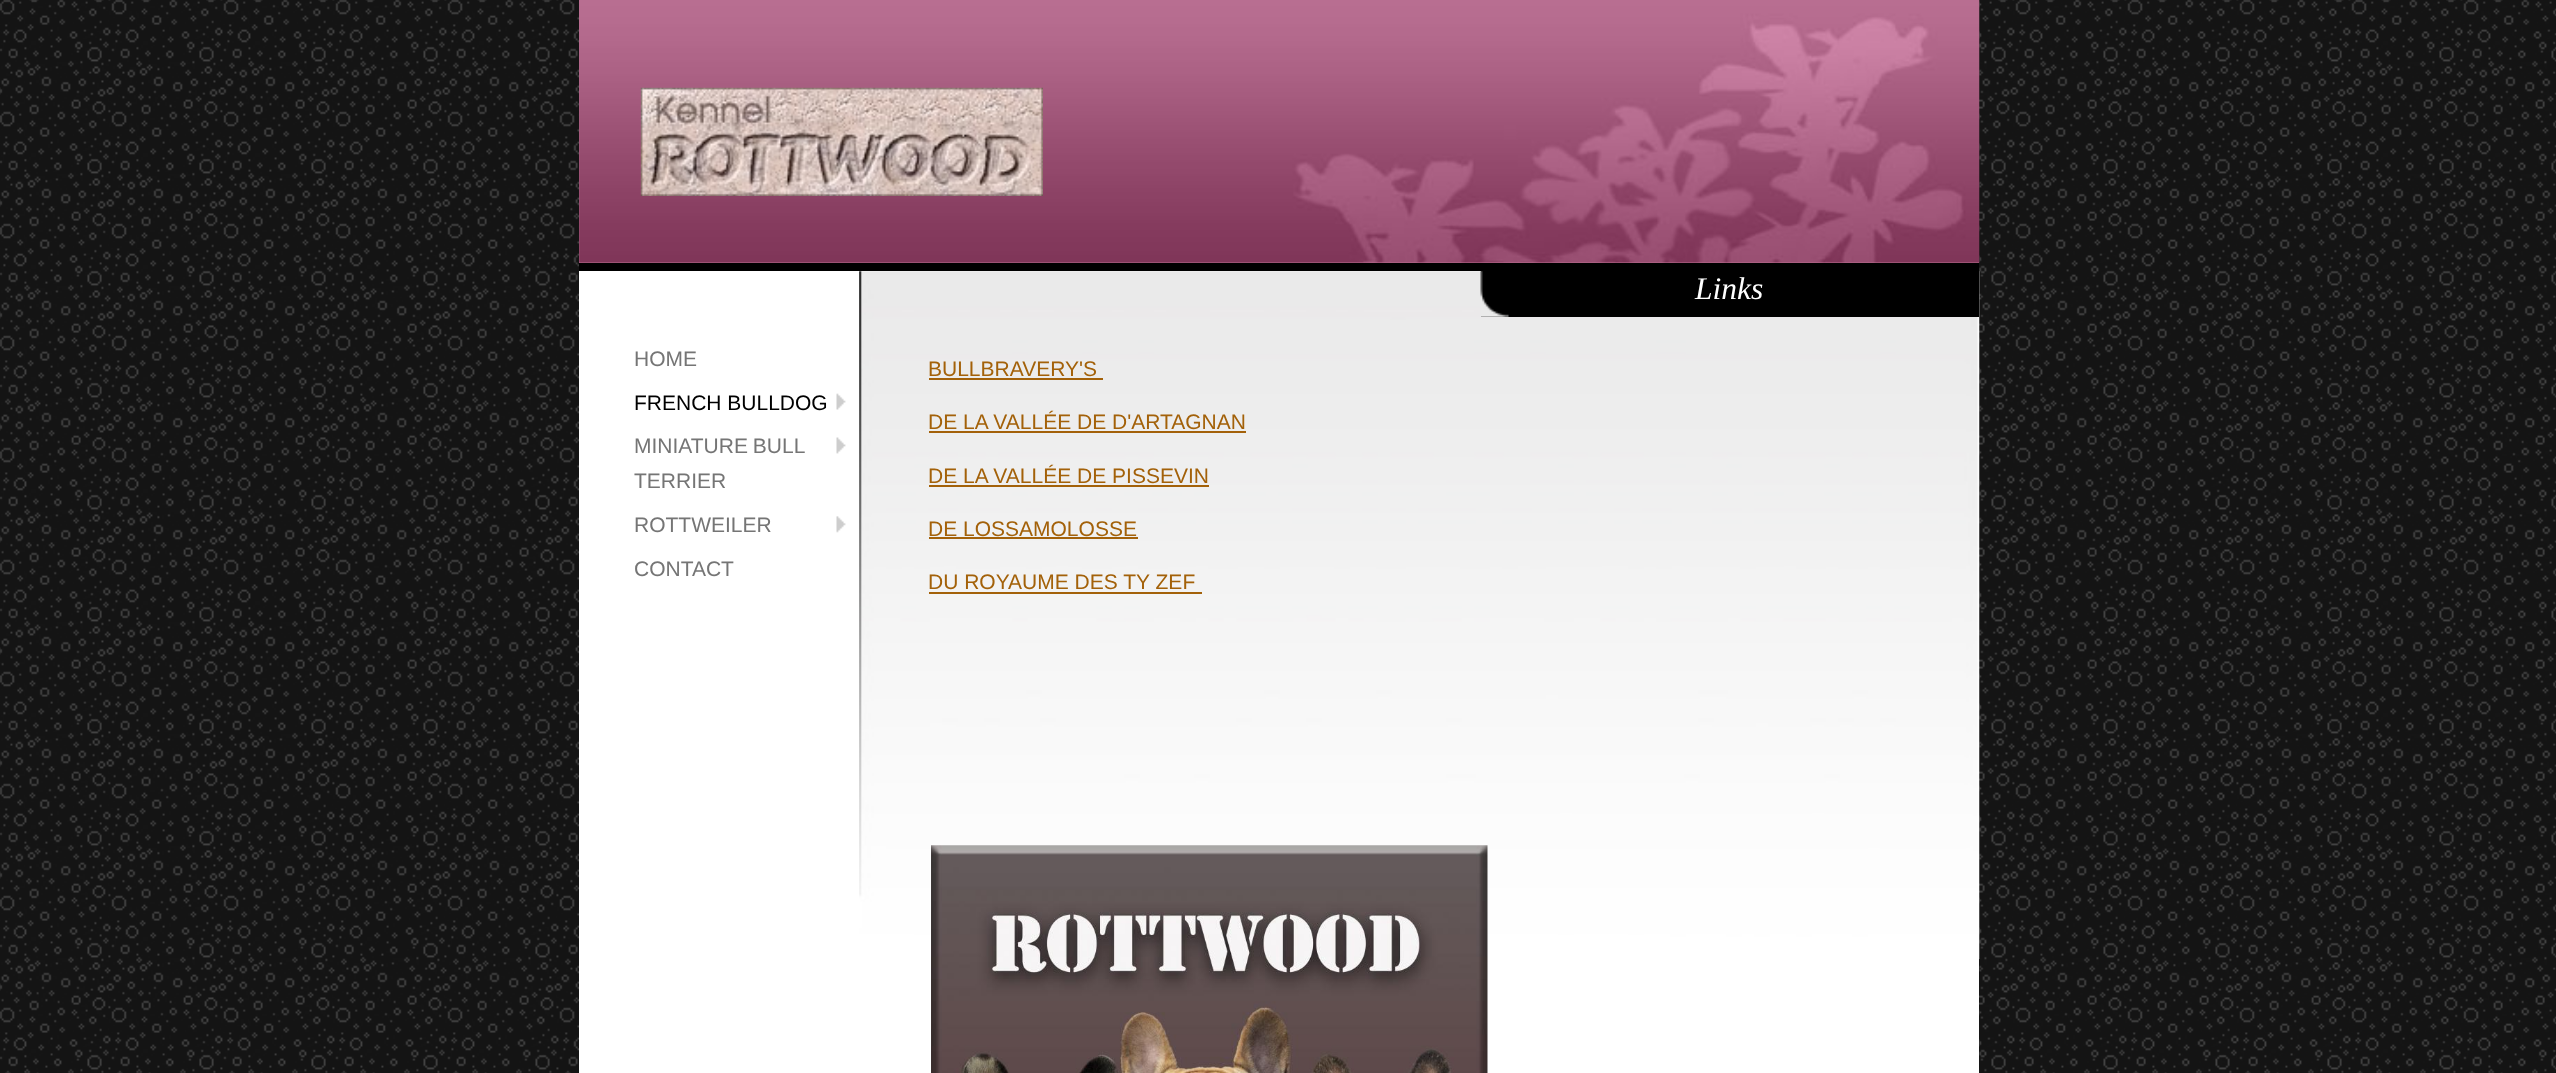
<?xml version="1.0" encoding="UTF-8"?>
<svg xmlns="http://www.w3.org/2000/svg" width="2556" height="1073">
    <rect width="100%" height="100%" fill="#FFFFFF"/>
    <image x="0" y="0" width="2556" height="1073" href="img_01.png"/>
    <rect x="579" y="271" width="1400" height="802" fill="#FFFFFF"/>
    <rect x="579" y="0" width="1400" height="263" fill="#B86E91"/>
    <image x="579" y="0" width="1401" height="263" href="img_02.png"/>
    <rect x="579" y="263" width="1400" height="8" fill="#000000"/>
    <image x="640" y="87" width="403" height="109" href="img_03.png"/>
    <text x="634" y="366" font-family="Liberation Sans" font-size="21" fill="#757575">HOME</text>
    <text x="634" y="410" font-family="Liberation Sans" font-size="21" fill="#000000">FRENCH BULLDOG</text>
    <image x="836" y="393" width="10" height="17" href="img_04.png"/>
    <text font-family="Liberation Sans" font-size="21" fill="#757575">
        <tspan x="634" y="453" word-spacing="-1">MINIATURE BULL</tspan>
        <tspan x="634" y="488">TERRIER</tspan>
    </text>
    <image x="836" y="437" width="10" height="17" href="img_05.png"/>
    <text x="634" y="532" font-family="Liberation Sans" font-size="21" fill="#757575">ROTTWEILER</text>
    <image x="836" y="516" width="10" height="17" href="img_06.png"/>
    <text x="634" y="576" font-family="Liberation Sans" font-size="21" fill="#757575">CONTACT</text>
    <image x="859" y="271" width="1121" height="688" href="img_07.png"/>
    <rect x="1481" y="271" width="498" height="46" fill="#000000"/>
    <image x="1480" y="271" width="29" height="46" href="img_08.png"/>
    <text x="1695" y="299" font-family="Liberation Serif" font-size="31.5" font-style="italic" fill="#FFFFFF">Links</text>
    <text x="928" y="376" font-family="Liberation Sans" font-size="21" fill="#A36109">BULLBRAVERY'S</text>
    <rect x="929" y="378" width="174" height="2" fill="#A36109"/>
    <text x="928" y="429" font-family="Liberation Sans" font-size="21" fill="#A36109">DE LA VALLÉE DE D'ARTAGNAN</text>
    <rect x="929" y="431" width="317" height="2" fill="#A36109"/>
    <text x="928" y="483" font-family="Liberation Sans" font-size="21" fill="#A36109">DE LA VALLÉE DE PISSEVIN</text>
    <rect x="929" y="485" width="280" height="2" fill="#A36109"/>
    <text x="928" y="536" font-family="Liberation Sans" font-size="21" fill="#A36109">DE LOSSAMOLOSSE</text>
    <rect x="929" y="537" width="209" height="2" fill="#A36109"/>
    <text x="928" y="589" font-family="Liberation Sans" font-size="21" fill="#A36109">DU ROYAUME DES TY ZEF</text>
    <rect x="929" y="592" width="273" height="2" fill="#A36109"/>
    <image x="931" y="845" width="557" height="228" href="img_09.png"/>
</svg>
